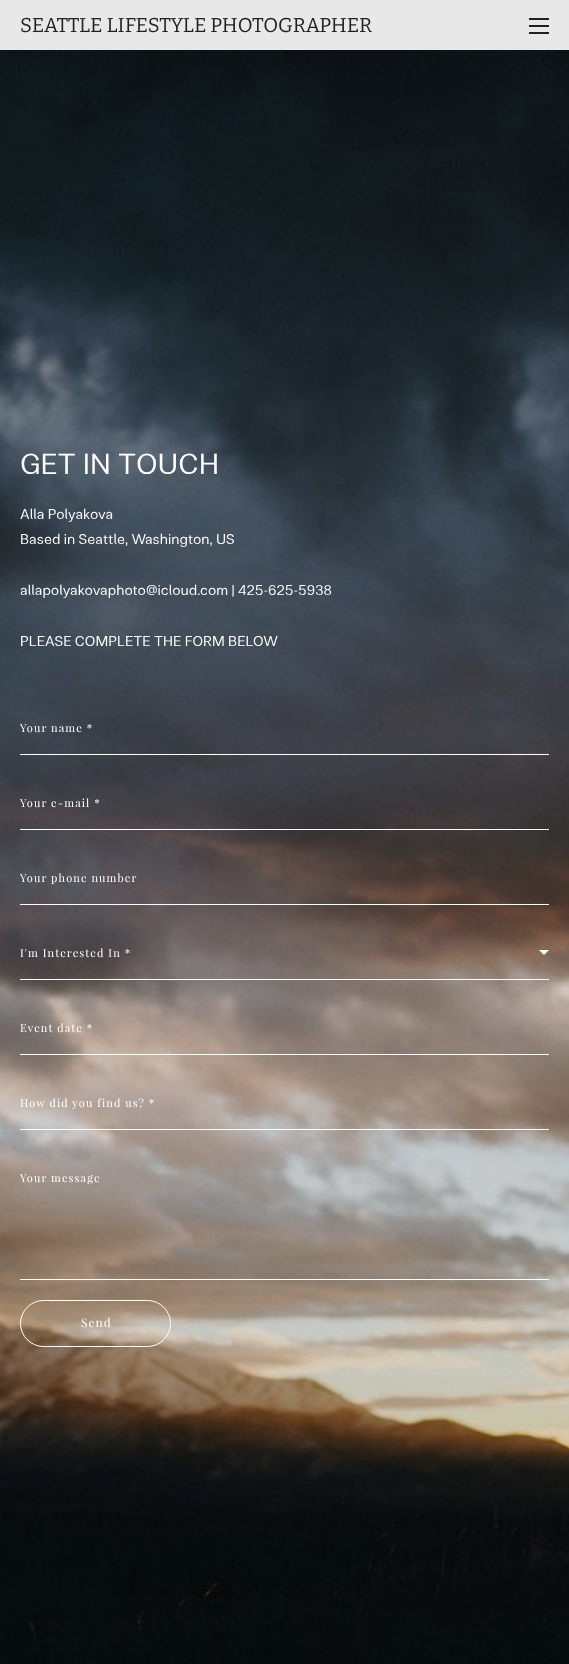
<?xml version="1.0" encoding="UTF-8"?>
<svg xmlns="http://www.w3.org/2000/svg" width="569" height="1664">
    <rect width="100%" height="100%" fill="#FFFFFF"/>
    <rect x="0" y="0" width="569" height="50" fill="#E8E8E8"/>
    <text x="20" y="32" font-family="Bitter" font-size="20" fill="#212121">SEATTLE LIFESTYLE PHOTOGRAPHER</text>
    <rect x="529" y="18" width="20" height="2" fill="#212121"/>
    <rect x="529" y="25" width="20" height="2" fill="#212121"/>
    <rect x="529" y="32" width="20" height="2" fill="#212121"/>
    <image x="0" y="50" width="569" height="1614" href="img_01.png"/>
    <text x="20" y="474" font-family="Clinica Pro" font-size="29" fill="#FFFFFF">GET IN TOUCH</text>
    <text font-family="Clinica Pro" font-size="14.2" fill="#FFFFFF">
        <tspan x="20" y="519">Alla Polyakova</tspan>
        <tspan x="20" y="544">Based in Seattle, Washington, US</tspan>
    </text>
    <text x="20" y="595" font-family="Clinica Pro" font-size="14.2" fill="#FFFFFF">allapolyakovaphoto@icloud.com | 425-625-5938</text>
    <text x="20" y="646" font-family="Clinica Pro" font-size="14.2" fill="#FFFFFF">PLEASE COMPLETE THE FORM BELOW</text>
    <rect x="20" y="754" width="529" height="1" fill="#FFFFFF"/>
    <text x="20" y="732" font-family="Playfair Display" font-size="11" letter-spacing="1.1" fill="#FFFFFF">Your name *</text>
    <rect x="20" y="829" width="529" height="1" fill="#FFFFFF"/>
    <text x="20" y="807" font-family="Playfair Display" font-size="11" letter-spacing="1.1" fill="#FFFFFF">Your e-mail *</text>
    <rect x="20" y="904" width="529" height="1" fill="#FFFFFF"/>
    <text x="20" y="882" font-family="Playfair Display" font-size="11" letter-spacing="1.1" fill="#FFFFFF">Your phone number</text>
    <rect x="20" y="979" width="529" height="1" fill="#FFFFFF"/>
    <text x="20" y="957" font-family="Playfair Display" font-size="11" letter-spacing="1.1" fill="#FFFFFF">I'm Interested In *</text>
    <path d="M 539 950 H 549 L 544 955 Z" fill="#FFFFFF"/>
    <rect x="20" y="1054" width="529" height="1" fill="#FFFFFF"/>
    <text x="20" y="1032" font-family="Playfair Display" font-size="11" letter-spacing="1.1" fill="#FFFFFF">Event date *</text>
    <rect x="20" y="1129" width="529" height="1" fill="#FFFFFF"/>
    <text x="20" y="1107" font-family="Playfair Display" font-size="11" letter-spacing="1.1" fill="#FFFFFF">How did you find us? *</text>
    <rect x="20" y="1279" width="529" height="1" fill="#FFFFFF"/>
    <text x="20" y="1182" font-family="Playfair Display" font-size="11" letter-spacing="1.1" fill="#FFFFFF">Your message</text>
    <rect x="20.5" y="1300.5" width="150" height="46" rx="23" fill="none" stroke="#FFFFFF"/>
    <text x="81" y="1327" font-family="Playfair Display" font-size="12" letter-spacing="1" fill="#FFFFFF">Send</text>
</svg>
